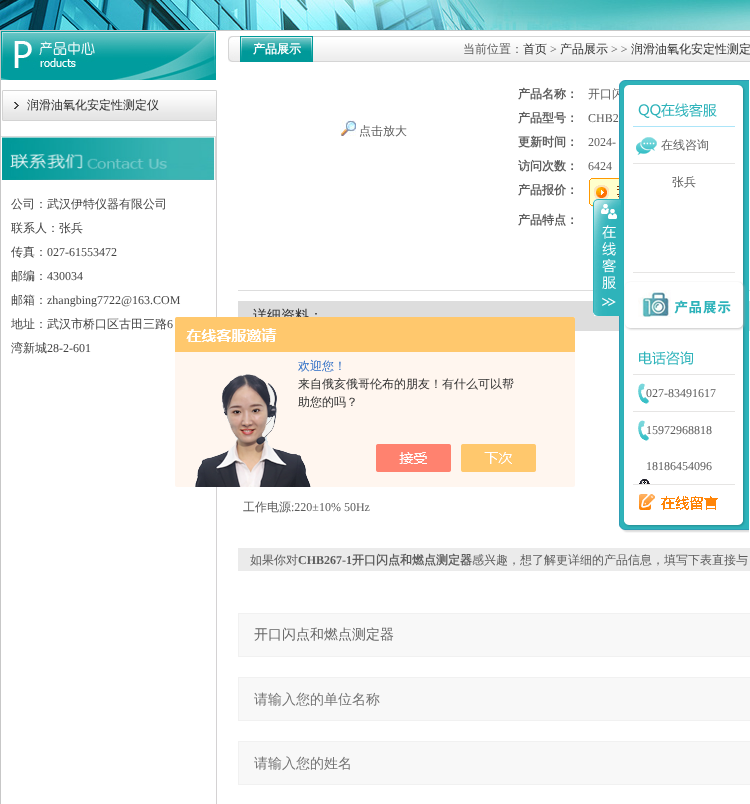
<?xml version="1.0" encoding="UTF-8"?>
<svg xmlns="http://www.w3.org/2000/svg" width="750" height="804">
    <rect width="100%" height="100%" fill="#FFFFFF"/>
    <image x="0" y="0" width="750" height="30" href="img_01.png"/>
    <rect x="216" y="121" width="1" height="683" fill="#D4D2D3"/>
    <rect x="0.5" y="30.5" width="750" height="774" fill="none" stroke="#C7C7C7"/>
    <image x="1" y="31" width="215" height="49" href="img_02.png"/>
    <image x="2" y="90" width="215" height="31" href="img_03.png"/>
    <text x="27" y="109" font-family="WenQuanYi Zen Hei" font-size="12" font-weight="500" fill="#2D2D2D">润滑油氧化安定性测定仪</text>
    <image x="1" y="136" width="215" height="44" href="img_04.png"/>
    <text x="11" y="208" font-family="WenQuanYi Zen Hei" font-size="12" font-weight="500" fill="#444444">公司：武汉伊特仪器有限公司</text>
    <text x="11" y="232" font-family="WenQuanYi Zen Hei" font-size="12" font-weight="500" fill="#444444">联系人：张兵</text>
    <text x="11" y="256" font-family="WenQuanYi Zen Hei" font-size="12" font-weight="500" fill="#444444">传真：</text>
    <text x="47" y="256" font-family="Liberation Serif" font-size="12" fill="#444444">027-61553472</text>
    <text x="11" y="280" font-family="WenQuanYi Zen Hei" font-size="12" font-weight="500" fill="#444444">邮编：</text>
    <text x="47" y="280" font-family="Liberation Serif" font-size="12" fill="#444444">430034</text>
    <text x="11" y="304" font-family="WenQuanYi Zen Hei" font-size="12" font-weight="500" fill="#444444">邮箱：</text>
    <text x="47" y="304" font-family="Liberation Serif" font-size="12" fill="#444444">zhangbing7722@163.COM</text>
    <text x="11" y="328" font-family="WenQuanYi Zen Hei" font-size="12" font-weight="500" fill="#444444">地址：武汉市桥口区古田三路</text>
    <text x="167" y="328" font-family="Liberation Serif" font-size="12" fill="#444444">6</text>
    <text x="11" y="352" font-family="WenQuanYi Zen Hei" font-size="12" font-weight="500" fill="#444444">湾新城</text>
    <text x="47" y="352" font-family="Liberation Serif" font-size="12" fill="#444444">28-2-601</text>
    <image x="228" y="36" width="522" height="26" href="img_05.png"/>
    <image x="240" y="36" width="73" height="26" href="img_06.png"/>
    <text x="253" y="53" font-family="WenQuanYi Zen Hei" font-size="12" font-weight="700" fill="#FFFFFF">产品展示</text>
    <text x="463" y="53" font-family="WenQuanYi Zen Hei" font-size="12" font-weight="500" fill="#5C5C5C">当前位置：</text>
    <text x="523" y="53" font-family="WenQuanYi Zen Hei" font-size="12" font-weight="500" fill="#333333">首页</text>
    <text x="550" y="53" font-family="Liberation Serif" font-size="12" fill="#5C5C5C">&gt;</text>
    <text x="560" y="53" font-family="WenQuanYi Zen Hei" font-size="12" font-weight="500" fill="#333333">产品展示</text>
    <text x="611" y="53" font-family="Liberation Serif" font-size="12" fill="#5C5C5C">&gt; &gt;</text>
    <text x="631" y="53" font-family="WenQuanYi Zen Hei" font-size="12" font-weight="500" fill="#333333">润滑油氧化安定性测定</text>
    <rect x="238" y="290" width="512" height="1" fill="#DDDDDD"/>
    <image x="340" y="120" width="16" height="16" href="img_07.png"/>
    <text x="359" y="135" font-family="WenQuanYi Zen Hei" font-size="12" font-weight="500" fill="#5C5C5C">点击放大</text>
    <text x="518" y="98" font-family="WenQuanYi Zen Hei" font-size="12" font-weight="700" fill="#5C5C5C">产品名称：</text>
    <text x="588" y="98" font-family="WenQuanYi Zen Hei" font-size="12" font-weight="500" fill="#5C5C5C">开口闪</text>
    <text x="518" y="122" font-family="WenQuanYi Zen Hei" font-size="12" font-weight="700" fill="#5C5C5C">产品型号：</text>
    <text x="588" y="122" font-family="Liberation Serif" font-size="12" fill="#5C5C5C">CHB2</text>
    <text x="518" y="146" font-family="WenQuanYi Zen Hei" font-size="12" font-weight="700" fill="#5C5C5C">更新时间：</text>
    <text x="588" y="146" font-family="Liberation Serif" font-size="12" fill="#5C5C5C">2024-</text>
    <text x="518" y="170" font-family="WenQuanYi Zen Hei" font-size="12" font-weight="700" fill="#5C5C5C">访问次数：</text>
    <text x="588" y="170" font-family="Liberation Serif" font-size="12" fill="#5C5C5C">6424</text>
    <text x="518" y="194" font-family="WenQuanYi Zen Hei" font-size="12" font-weight="700" fill="#5C5C5C">产品报价：</text>
    <image x="589" y="178" width="30" height="30" href="img_08.png"/>
    <text x="518" y="224" font-family="WenQuanYi Zen Hei" font-size="12" font-weight="700" fill="#5C5C5C">产品特点：</text>
    <rect x="238" y="301" width="512" height="30" fill="#DDDDDD"/>
    <text x="253" y="320" font-family="WenQuanYi Zen Hei" font-size="14" font-weight="500" fill="#333333">详细资料：</text>
    <text x="243" y="511" font-family="WenQuanYi Zen Hei" font-size="12" font-weight="500" fill="#5C5C5C">工作电源</text>
    <text x="291" y="511" font-family="Liberation Serif" font-size="12" fill="#5C5C5C">:220±10% 50Hz</text>
    <rect x="238" y="548" width="512" height="23" fill="#EBEBEB"/>
    <text x="250" y="564" font-family="WenQuanYi Zen Hei" font-size="12" font-weight="500" fill="#5C5C5C">如果你对</text>
    <text x="298" y="564" font-family="Liberation Serif" font-size="12" font-weight="700" fill="#5C5C5C">CHB267-1</text>
    <text x="352" y="564" font-family="WenQuanYi Zen Hei" font-size="12" font-weight="700" fill="#5C5C5C">开口闪点和燃点测定器</text>
    <text x="472" y="564" font-family="WenQuanYi Zen Hei" font-size="12" font-weight="500" fill="#5C5C5C">感兴趣，想了解更详细的产品信息，填写下表直接与</text>
    <rect x="238.5" y="613.5" width="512" height="43" fill="#F8F8F8" stroke="#F1F1F1"/>
    <text x="254" y="639" font-family="WenQuanYi Zen Hei" font-size="14" font-weight="500" fill="#666666">开口闪点和燃点测定器</text>
    <rect x="238.5" y="677.5" width="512" height="43" fill="#F8F8F8" stroke="#F1F1F1"/>
    <text x="254" y="704" font-family="WenQuanYi Zen Hei" font-size="14" font-weight="500" fill="#757575">请输入您的单位名称</text>
    <rect x="238.5" y="741.5" width="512" height="43" fill="#F8F8F8" stroke="#F1F1F1"/>
    <text x="254" y="768" font-family="WenQuanYi Zen Hei" font-size="14" font-weight="500" fill="#757575">请输入您的姓名</text>
    <image x="619" y="90" width="130" height="431" href="img_12.png"/>
    <image x="593" y="199" width="28" height="117" href="img_09.png"/>
    <image x="619" y="521" width="130" height="12" href="img_10.png"/>
    <image x="619" y="80" width="130" height="10" href="img_11.png"/>
    <rect x="633" y="126" width="102" height="1" fill="#ACE5F9"/>
    <image x="638" y="103" width="79" height="15" href="img_13.png"/>
    <rect x="633" y="163" width="102" height="1" fill="#E6E5E4"/>
    <image x="636" y="137" width="21" height="18" href="img_14.png"/>
    <text x="661" y="149" font-family="WenQuanYi Zen Hei" font-size="12" font-weight="500" fill="#5C5C5C">在线咨询</text>
    <rect x="633" y="272" width="102" height="1" fill="#E6E5E4"/>
    <text x="672" y="186" font-family="WenQuanYi Zen Hei" font-size="12" font-weight="500" fill="#5C5C5C">张兵</text>
    <image x="624" y="281" width="122" height="50" href="img_15.png"/>
    <rect x="633" y="374" width="102" height="1" fill="#E6E5E4"/>
    <image x="639" y="351" width="55" height="14" href="img_16.png"/>
    <rect x="633" y="411" width="102" height="1" fill="#E6E5E4"/>
    <image x="638" y="383" width="12" height="21" href="img_17.png"/>
    <text x="646" y="397" font-family="Liberation Serif" font-size="12" fill="#5C5C5C">027-83491617</text>
    <rect x="633" y="484" width="102" height="1" fill="#E6E5E4"/>
    <image x="638" y="420" width="12" height="64" href="img_18.png"/>
    <text x="646" y="434" font-family="Liberation Serif" font-size="12" fill="#5C5C5C">15972968818</text>
    <text x="646" y="470" font-family="Liberation Serif" font-size="12" fill="#5C5C5C">18186454096</text>
    <image x="639" y="494" width="79" height="16" href="img_19.png"/>
    <image x="175" y="317" width="400" height="170" href="img_20.png"/>
    <text x="298" y="370" font-family="WenQuanYi Zen Hei" font-size="12" font-weight="500" fill="#2E6EC6">欢迎您！</text>
    <text font-family="WenQuanYi Zen Hei" font-size="12" font-weight="500" fill="#333333">
        <tspan x="298" y="388">来自俄亥俄哥伦布的朋友！有什么可以帮</tspan>
        <tspan x="298" y="406">助您的吗？</tspan>
    </text>
</svg>
